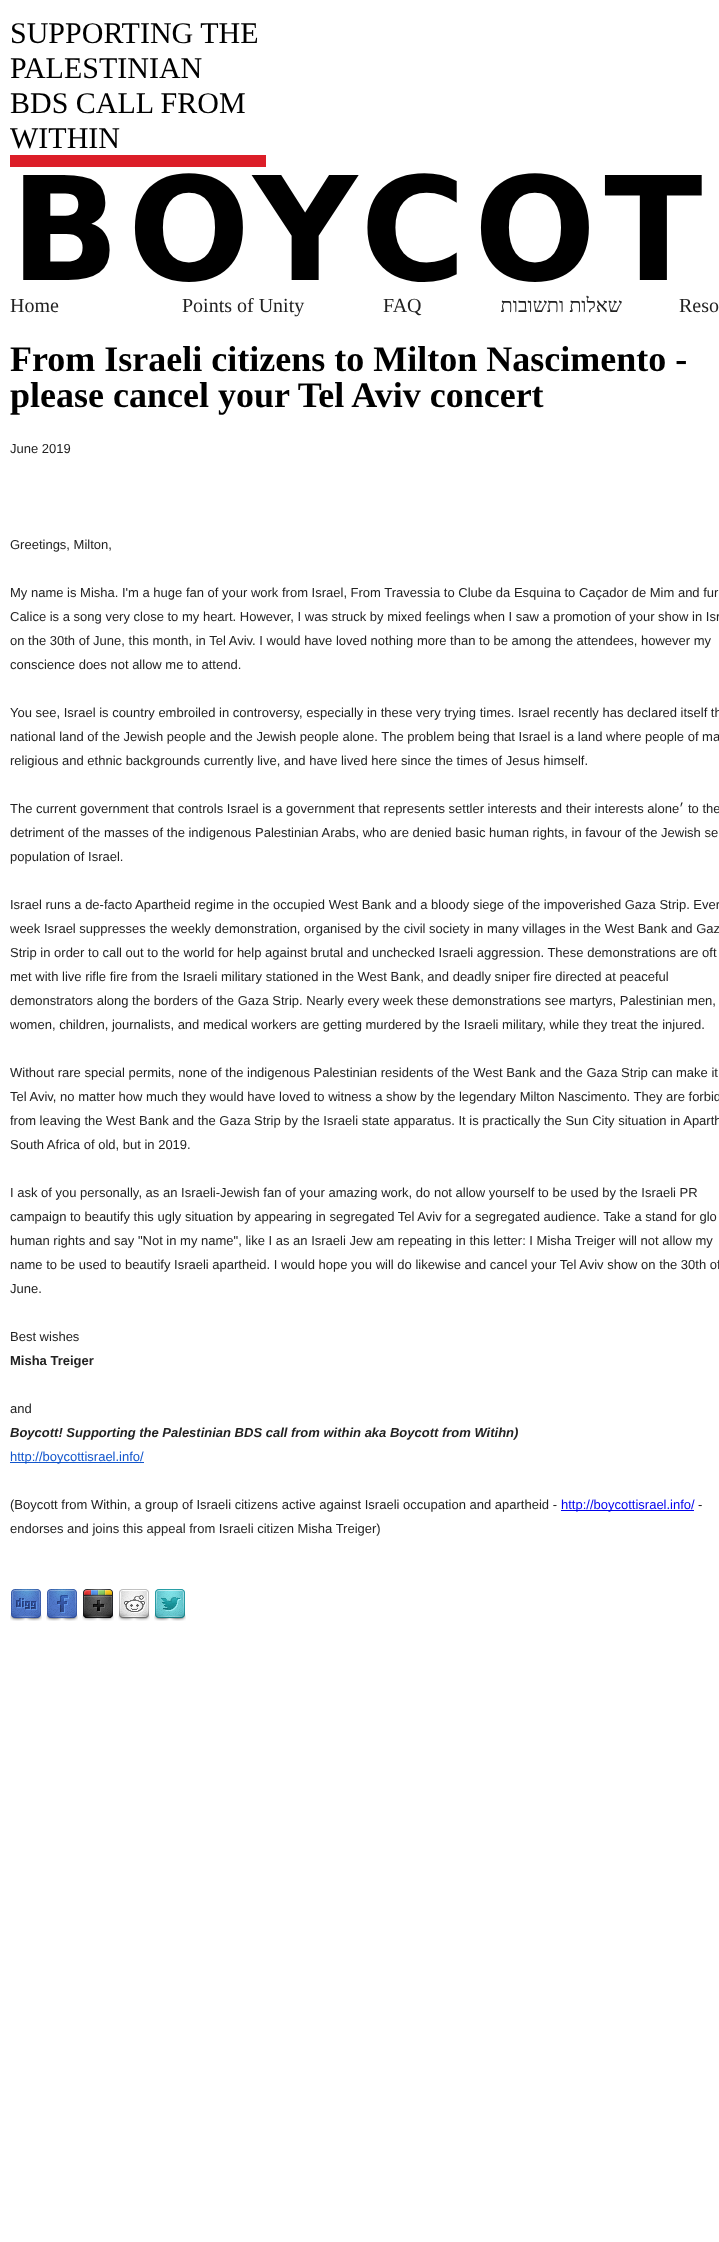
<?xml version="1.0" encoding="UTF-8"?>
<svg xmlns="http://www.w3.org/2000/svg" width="719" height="2242">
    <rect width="100%" height="100%" fill="#FFFFFF"/>
    <rect x="10" y="155" width="256" height="12" fill="#DC1E28"/>
    <text font-family="Liberation Serif" font-size="30" fill="#000000">
        <tspan x="10" y="43">SUPPORTING THE</tspan>
        <tspan x="10" y="78">PALESTINIAN</tspan>
        <tspan x="10" y="113">BDS CALL FROM</tspan>
        <tspan x="10" y="148">WITHIN</tspan>
    </text>
    <text x="10" y="280" font-family="DejaVu Sans" font-size="144" font-weight="700" letter-spacing="8" fill="#000000">BOYCOT</text>
    <text x="10" y="312" font-family="Liberation Serif" font-size="20" fill="#222222">Home</text>
    <text x="182" y="312" font-family="Liberation Serif" font-size="20" fill="#222222">Points of Unity</text>
    <text x="383" y="312" font-family="Liberation Serif" font-size="20" fill="#222222">FAQ</text>
    <text x="622" y="312" font-family="Liberation Serif" font-size="20" direction="rtl" fill="#222222">שאלות ותשובות</text>
    <text x="679" y="312" font-family="Liberation Serif" font-size="20" fill="#222222">Reso</text>
    <text font-family="Liberation Serif" font-size="36" font-weight="700" fill="#000000">
        <tspan x="10" y="371">From Israeli citizens to Milton Nascimento -</tspan>
        <tspan x="10" y="407">please cancel your Tel Aviv concert</tspan>
    </text>
    <text x="10" y="453" font-family="Liberation Sans" font-size="13" fill="#222222">June 2019</text>
    <text x="10" y="549" font-family="Liberation Sans" font-size="13" fill="#222222">Greetings, Milton,</text>
    <text font-family="Liberation Sans" font-size="13" fill="#222222">
        <tspan x="10" y="597">My name is Misha. I'm a huge fan of your work from Israel, From Travessia to Clube da Esquina to Caçador de Mim and fur</tspan>
        <tspan x="10" y="621">Calice is a song very close to my heart. However, I was struck by mixed feelings when I saw a promotion of your show in Isr</tspan>
        <tspan x="10" y="645">on the 30th of June, this month, in Tel Aviv. I would have loved nothing more than to be among the attendees, however my</tspan>
        <tspan x="10" y="669">conscience does not allow me to attend.</tspan>
    </text>
    <text font-family="Liberation Sans" font-size="13" fill="#222222">
        <tspan x="10" y="717">You see, Israel is country embroiled in controversy, especially in these very trying times. Israel recently has declared itself th</tspan>
        <tspan x="10" y="741">national land of the Jewish people and the Jewish people alone. The problem being that Israel is a land where people of ma</tspan>
        <tspan x="10" y="765">religious and ethnic backgrounds currently live, and have lived here since the times of Jesus himself.</tspan>
    </text>
    <text x="10" y="813" font-family="Liberation Sans" font-size="13" fill="#222222">The current government that controls Israel is a government that represents settler interests and their interests alone</text>
    <text x="684" y="813" font-family="Liberation Sans" font-size="13" direction="rtl" fill="#222222">׳</text>
    <text x="688" y="813" font-family="Liberation Sans" font-size="13" fill="#222222">to the</text>
    <text font-family="Liberation Sans" font-size="13" fill="#222222">
        <tspan x="10" y="837">detriment of the masses of the indigenous Palestinian Arabs, who are denied basic human rights, in favour of the Jewish se</tspan>
        <tspan x="10" y="861">population of Israel.</tspan>
    </text>
    <text font-family="Liberation Sans" font-size="13" fill="#222222">
        <tspan x="10" y="909">Israel runs a de-facto Apartheid regime in the occupied West Bank and a bloody siege of the impoverished Gaza Strip. Ever</tspan>
        <tspan x="10" y="933">week Israel suppresses the weekly demonstration, organised by the civil society in many villages in the West Bank and Gaz</tspan>
        <tspan x="10" y="957">Strip in order to call out to the world for help against brutal and unchecked Israeli aggression. These demonstrations are oft</tspan>
        <tspan x="10" y="981">met with live rifle fire from the Israeli military stationed in the West Bank, and deadly sniper fire directed at peaceful</tspan>
        <tspan x="10" y="1005">demonstrators along the borders of the Gaza Strip. Nearly every week these demonstrations see martyrs, Palestinian men,</tspan>
        <tspan x="10" y="1029">women, children, journalists, and medical workers are getting murdered by the Israeli military, while they treat the injured.</tspan>
    </text>
    <text font-family="Liberation Sans" font-size="13" fill="#222222">
        <tspan x="10" y="1077">Without rare special permits, none of the indigenous Palestinian residents of the West Bank and the Gaza Strip can make it</tspan>
        <tspan x="10" y="1101">Tel Aviv, no matter how much they would have loved to witness a show by the legendary Milton Nascimento. They are forbid</tspan>
        <tspan x="10" y="1125">from leaving the West Bank and the Gaza Strip by the Israeli state apparatus. It is practically the Sun City situation in Aparth</tspan>
        <tspan x="10" y="1149">South Africa of old, but in 2019.</tspan>
    </text>
    <text font-family="Liberation Sans" font-size="13" fill="#222222">
        <tspan x="10" y="1197">I ask of you personally, as an Israeli-Jewish fan of your amazing work, do not allow yourself to be used by the Israeli PR</tspan>
        <tspan x="10" y="1221">campaign to beautify this ugly situation by appearing in segregated Tel Aviv for a segregated audience. Take a stand for glo</tspan>
        <tspan x="10" y="1245">human rights and say "Not in my name", like I as an Israeli Jew am repeating in this letter: I Misha Treiger will not allow my</tspan>
        <tspan x="10" y="1269">name to be used to beautify Israeli apartheid. I would hope you will do likewise and cancel your Tel Aviv show on the 30th of</tspan>
        <tspan x="10" y="1293">June.</tspan>
    </text>
    <text x="10" y="1341" font-family="Liberation Sans" font-size="13" fill="#222222">Best wishes</text>
    <text x="10" y="1365" font-family="Liberation Sans" font-size="13" font-weight="700" fill="#222222">Misha Treiger</text>
    <text x="10" y="1413" font-family="Liberation Sans" font-size="13" fill="#222222">and</text>
    <text x="10" y="1437" font-family="Liberation Sans" font-size="13" font-weight="700" font-style="italic" fill="#222222">Boycott! Supporting the Palestinian BDS call from within aka Boycott from Witihn)</text>
    <rect x="10" y="1462" width="134" height="1" fill="#1155CC"/>
    <text x="10" y="1461" font-family="Liberation Sans" font-size="13" fill="#1155CC">http://boycottisrael.info/</text>
    <text x="10" y="1509" font-family="Liberation Sans" font-size="13" fill="#222222">(Boycott from Within, a group of Israeli citizens active against Israeli occupation and apartheid -</text>
    <rect x="561" y="1510" width="133" height="1" fill="#0000EE"/>
    <text x="561" y="1509" font-family="Liberation Sans" font-size="13" fill="#0000EE">http://boycottisrael.info/</text>
    <text x="698" y="1509" font-family="Liberation Sans" font-size="13" fill="#222222">-</text>
    <text x="10" y="1533" font-family="Liberation Sans" font-size="13" fill="#222222">endorses and joins this appeal from Israeli citizen Misha Treiger)</text>
    <image x="10" y="1589" width="32" height="32" href="img_01.png"/>
    <image x="46" y="1589" width="32" height="32" href="img_02.png"/>
    <image x="82" y="1589" width="32" height="32" href="img_03.png"/>
    <image x="118" y="1589" width="32" height="32" href="img_04.png"/>
    <image x="154" y="1589" width="32" height="32" href="img_05.png"/>
</svg>
